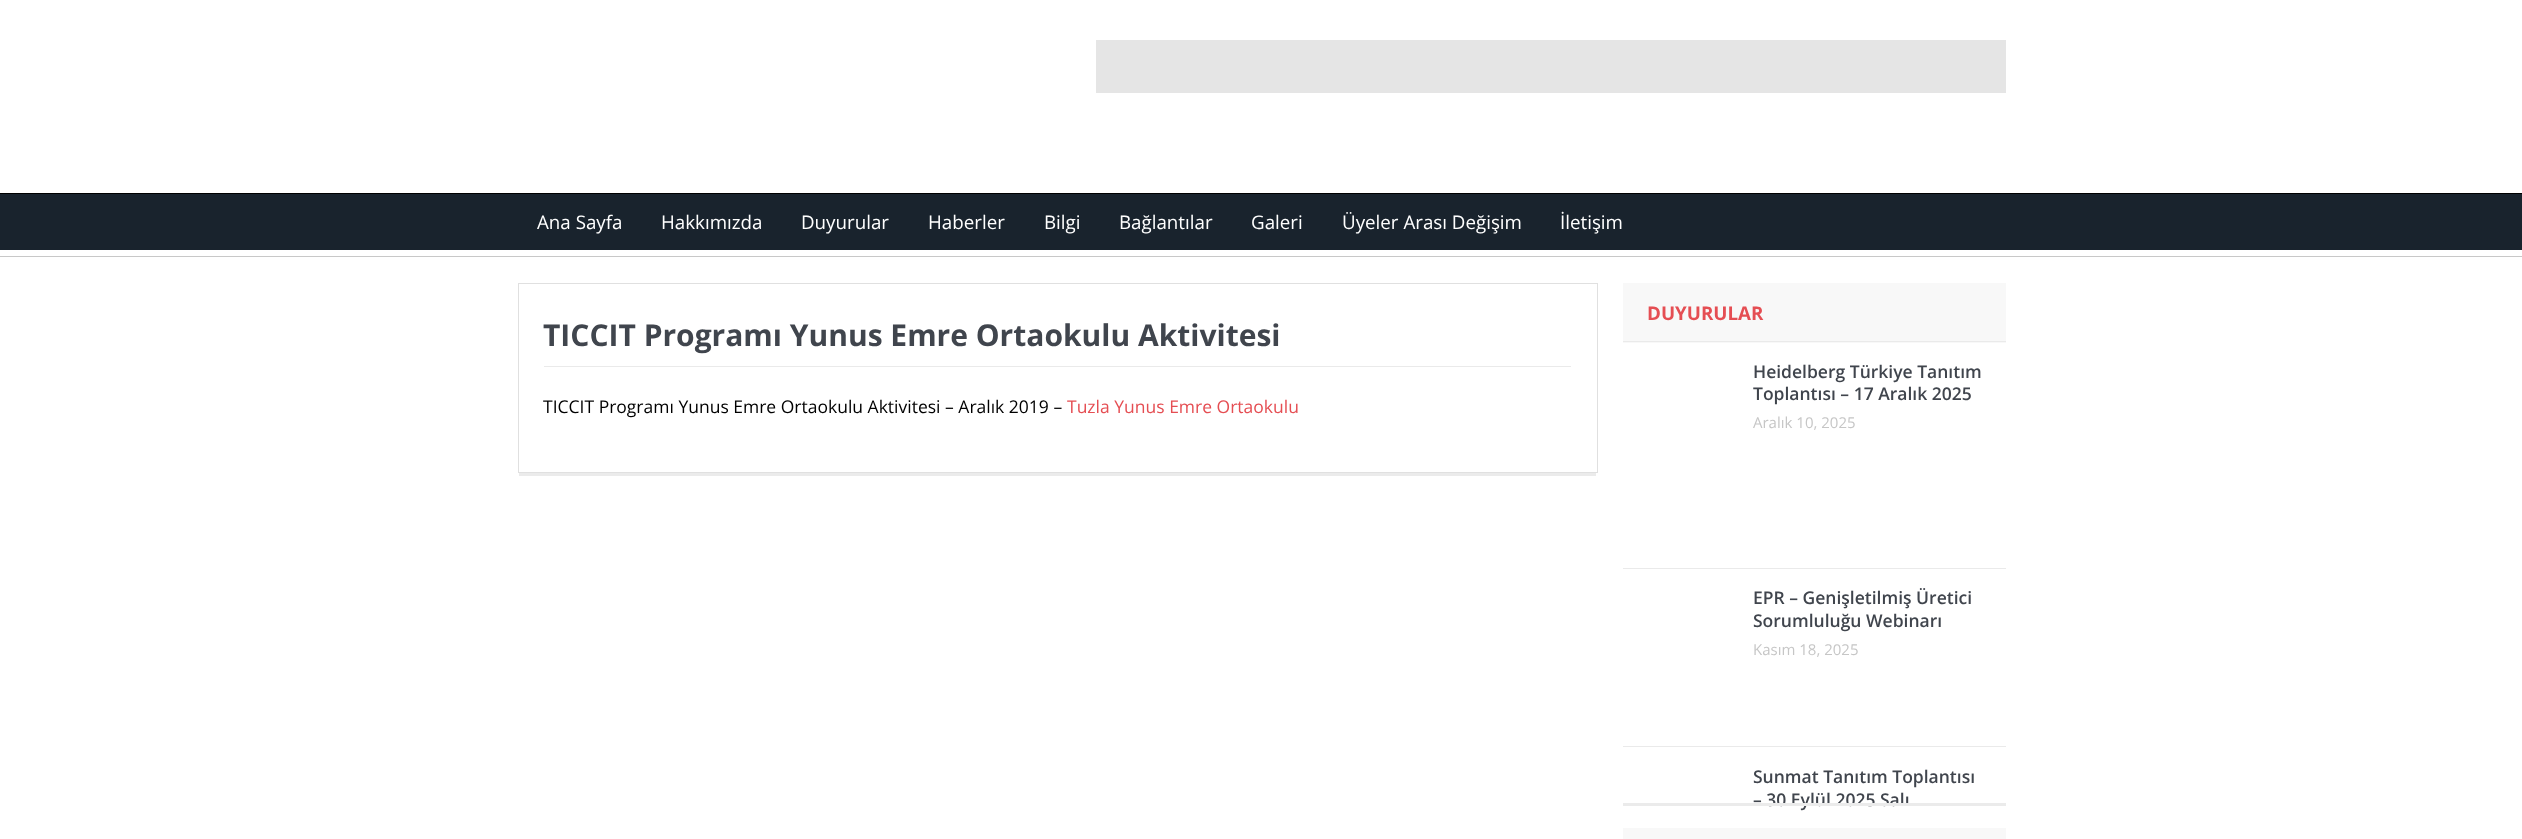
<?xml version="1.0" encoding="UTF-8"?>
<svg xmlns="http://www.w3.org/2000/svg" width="2522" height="839">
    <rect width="100%" height="100%" fill="#FFFFFF"/>
    <rect x="1096" y="40" width="910" height="53" fill="#E5E5E5"/>
    <rect x="0" y="193" width="2522" height="1" fill="#000000"/>
    <rect x="0" y="256" width="2522" height="1" fill="#C8C8C8"/>
    <rect x="0" y="194" width="2522" height="56" fill="#19232D"/>
    <text x="537" y="229" font-family="Open Sans" font-size="18.75" fill="#FFFFFF">Ana Sayfa</text>
    <text x="661" y="229" font-family="Open Sans" font-size="18.75" fill="#FFFFFF">Hakkımızda</text>
    <text x="801" y="229" font-family="Open Sans" font-size="18.75" fill="#FFFFFF">Duyurular</text>
    <text x="928" y="229" font-family="Open Sans" font-size="18.75" fill="#FFFFFF">Haberler</text>
    <text x="1044" y="229" font-family="Open Sans" font-size="18.75" fill="#FFFFFF">Bilgi</text>
    <text x="1119" y="229" font-family="Open Sans" font-size="18.75" fill="#FFFFFF">Bağlantılar</text>
    <text x="1251" y="229" font-family="Open Sans" font-size="18.75" fill="#FFFFFF">Galeri</text>
    <text x="1342" y="229" font-family="Open Sans" font-size="18.75" fill="#FFFFFF">Üyeler Arası Değişim</text>
    <text x="1560" y="229" font-family="Open Sans" font-size="18.75" fill="#FFFFFF">İletişim</text>
    <rect x="518.5" y="283.5" width="1079" height="189" fill="none" stroke="#E0E0E0"/>
    <rect x="544" y="366" width="1027" height="1" fill="#EAEAEA"/>
    <text x="543" y="346" font-family="Open Sans" font-size="30" font-weight="700" fill="#40454D">TICCIT Programı Yunus Emre Ortaokulu Aktivitesi</text>
    <text x="543" y="413" font-family="Open Sans" font-size="17.5" fill="#000000">TICCIT Programı Yunus Emre Ortaokulu Aktivitesi – Aralık 2019 –</text>
    <text x="1067" y="413" font-family="Open Sans" font-size="17.5" fill="#E54E53">Tuzla Yunus Emre Ortaokulu</text>
    <rect x="519" y="473" width="1077" height="3" fill="#EBEBEB"/>
    <rect x="1623" y="283" width="383" height="60" fill="#F8F8F8"/>
    <rect x="1623" y="341" width="383" height="1" fill="#EAEAEA"/>
    <text x="1647" y="320" font-family="Open Sans" font-size="18.75" font-weight="700" fill="#E54E53">DUYURULAR</text>
    <rect x="1623" y="568" width="383" height="1" fill="#EAEAEA"/>
    <text font-family="Open Sans" font-size="17.5" font-weight="600" fill="#40454D">
        <tspan x="1753" y="378">Heidelberg Türkiye Tanıtım</tspan>
        <tspan x="1753" y="400">Toplantısı – 17 Aralık 2025</tspan>
    </text>
    <text x="1753" y="428" font-family="Open Sans" font-size="15" fill="#C6C6C6">Aralık 10, 2025</text>
    <rect x="1623" y="746" width="383" height="1" fill="#EAEAEA"/>
    <text font-family="Open Sans" font-size="17.5" font-weight="600" fill="#40454D">
        <tspan x="1753" y="604">EPR – Genişletilmiş Üretici</tspan>
        <tspan x="1753" y="627">Sorumluluğu Webinarı</tspan>
    </text>
    <text x="1753" y="655" font-family="Open Sans" font-size="15" fill="#C6C6C6">Kasım 18, 2025</text>
    <text font-family="Open Sans" font-size="17.5" font-weight="600" fill="#40454D">
        <tspan x="1753" y="783">Sunmat Tanıtım Toplantısı</tspan>
        <tspan x="1753" y="806">– 30 Eylül 2025 Salı</tspan>
    </text>
    <rect x="1623" y="803" width="383" height="3" fill="#EBEBEB"/>
    <rect x="1623" y="828" width="383" height="11" fill="#F8F8F8"/>
</svg>
